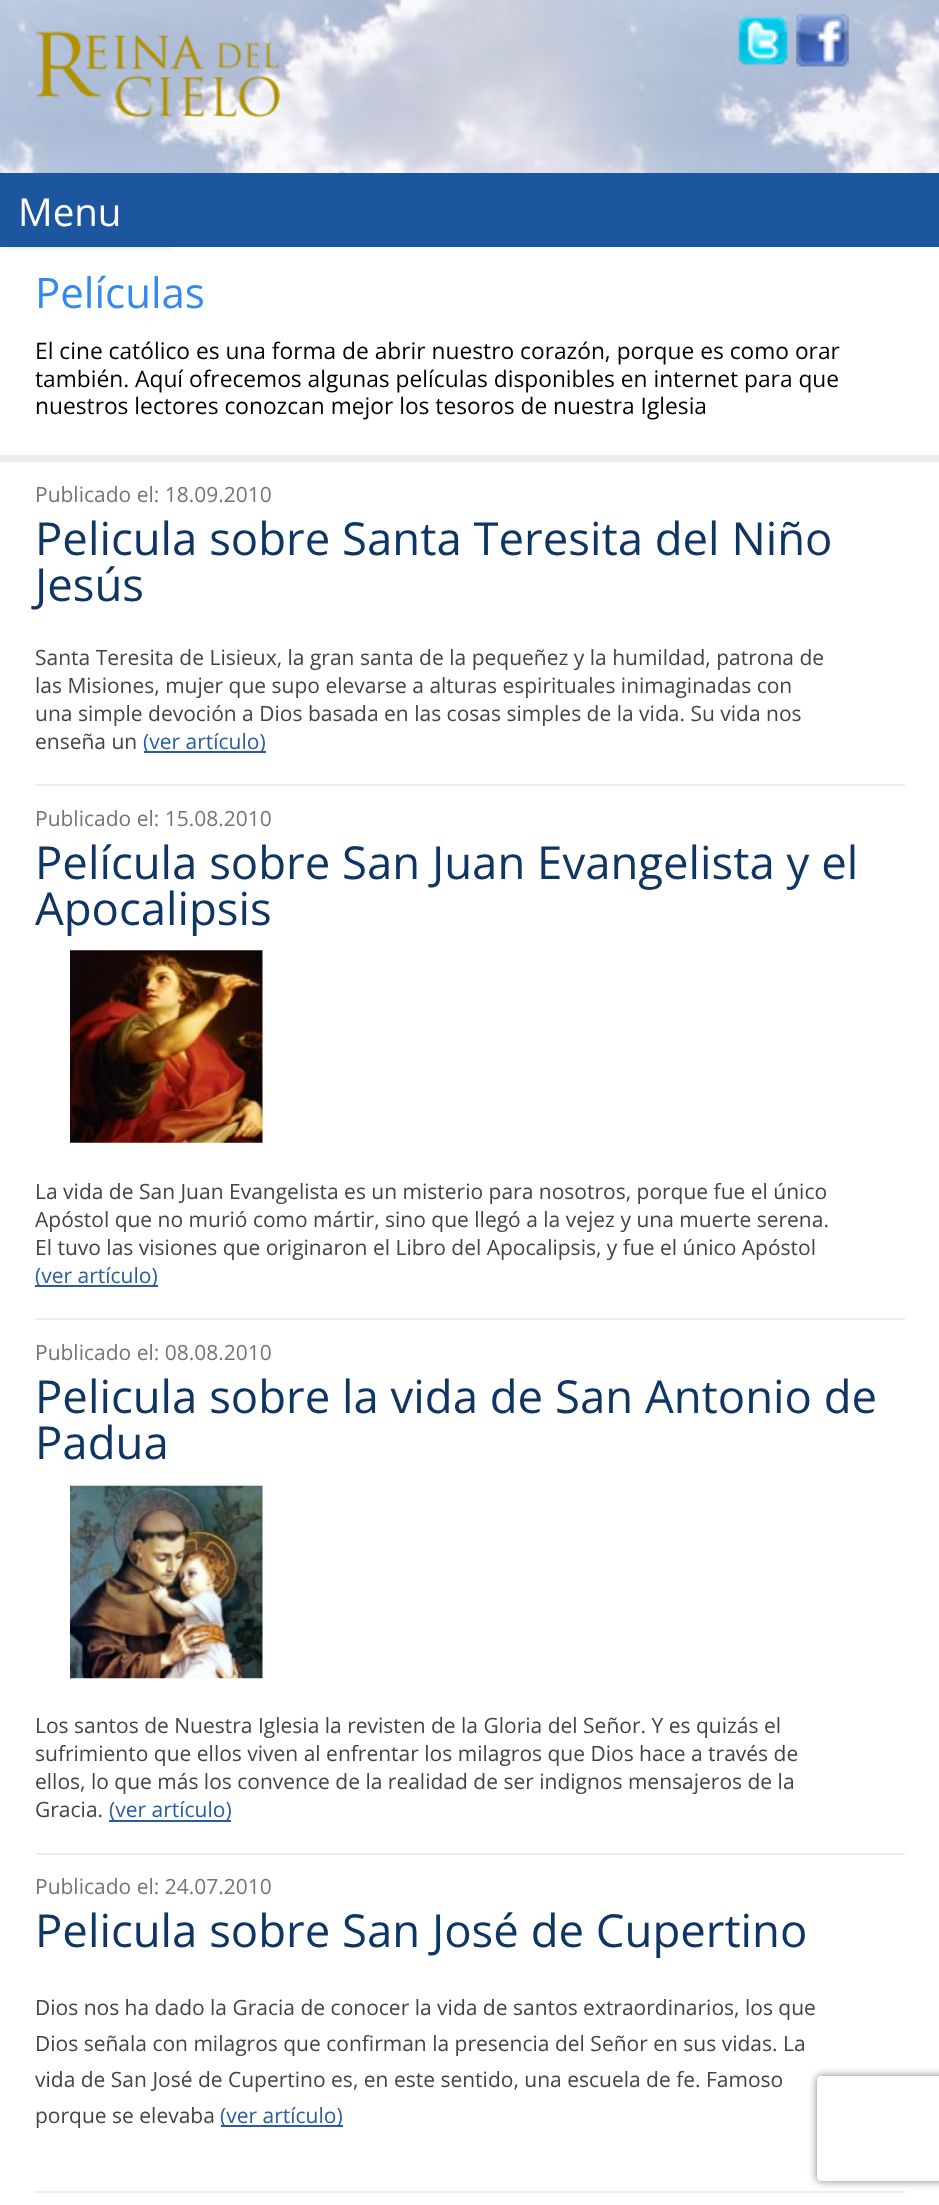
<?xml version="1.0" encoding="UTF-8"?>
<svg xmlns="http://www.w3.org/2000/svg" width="939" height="2205">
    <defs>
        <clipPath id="clip1"><path d="M 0 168 H 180 V 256 H 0 Z M 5 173 H 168 C 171 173 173 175 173 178 V 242 C 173 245 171 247 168 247 H 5 C 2 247 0 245 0 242 V 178 C 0 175 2 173 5 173 Z" clip-rule="evenodd"/></clipPath>
        <filter id="blur1" x="-50%" y="-200%" width="200%" height="500%"><feGaussianBlur stdDeviation="2"/></filter>
        <clipPath id="clip2"><path d="M 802 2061 H 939 V 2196 H 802 Z M 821 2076 H 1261 C 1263 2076 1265 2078 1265 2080 V 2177 C 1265 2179 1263 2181 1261 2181 H 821 C 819 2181 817 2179 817 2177 V 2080 C 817 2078 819 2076 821 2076 Z" clip-rule="evenodd"/></clipPath>
        <filter id="blur2" x="-50%" y="-200%" width="200%" height="500%"><feGaussianBlur stdDeviation="4.5"/></filter>
    </defs>
    <rect width="100%" height="100%" fill="#FFFFFF"/>
    <image x="0" y="0" width="939" height="173" href="img_01.png"/>
    <image x="35" y="31" width="245" height="87" href="img_02.png"/>
    <image x="738" y="15" width="50" height="50" href="img_03.png"/>
    <image x="796" y="14" width="53" height="53" href="img_04.png"/>
    <rect x="0" y="173" width="939" height="74" fill="#1B569E"/>
    <g clip-path="url(#clip1)">
        <rect x="0" y="175" width="173" height="74" rx="5" fill="#404040" fill-opacity="0.1" filter="url(#blur1)"/>
    </g>
    <text x="18" y="226" font-family="Open Sans" font-size="38.5" fill="#FFFFFF">Menu</text>
    <rect x="0" y="455" width="939" height="7" fill="#EDEDED"/>
    <text x="35" y="308" font-family="Open Sans" font-size="42" fill="#3489F1">Películas</text>
    <text font-family="Open Sans" font-size="22.75" fill="#000000">
        <tspan x="35" y="359">El cine católico es una forma de abrir nuestro corazón, porque es como orar</tspan>
        <tspan x="35" y="387">también. Aquí ofrecemos algunas películas disponibles en internet para que</tspan>
        <tspan x="35" y="414">nuestros lectores conozcan mejor los tesoros de nuestra Iglesia</tspan>
    </text>
    <rect x="35" y="784" width="870" height="2" fill="#EDEDED"/>
    <text x="35" y="502" font-family="Open Sans" font-size="21" fill="#757575">Publicado el: 18.09.2010</text>
    <text font-family="Open Sans" font-size="45.5" fill="#0F3564">
        <tspan x="35" y="555">Pelicula sobre Santa Teresita del Niño</tspan>
        <tspan x="35" y="601">Jesús</tspan>
    </text>
    <text font-family="Open Sans" font-size="21" fill="#444444">
        <tspan x="35" y="665">Santa Teresita de Lisieux, la gran santa de la pequeñez y la humildad, patrona de</tspan>
        <tspan x="35" y="693">las Misiones, mujer que supo elevarse a alturas espirituales inimaginadas con</tspan>
        <tspan x="35" y="721">una simple devoción a Dios basada en las cosas simples de la vida. Su vida nos</tspan>
        <tspan x="35" y="749">enseña un</tspan>
    </text>
    <rect x="144" y="751" width="122" height="2" fill="#285E9F"/>
    <text x="143" y="749" font-family="Open Sans" font-size="21" fill="#285E9F">(ver artículo)</text>
    <rect x="35" y="1318" width="870" height="2" fill="#EDEDED"/>
    <text x="35" y="826" font-family="Open Sans" font-size="21" fill="#757575">Publicado el: 15.08.2010</text>
    <text font-family="Open Sans" font-size="45.5" fill="#0F3564">
        <tspan x="35" y="879">Película sobre San Juan Evangelista y el</tspan>
        <tspan x="35" y="925">Apocalipsis</tspan>
    </text>
    <image x="70" y="950" width="193" height="193" href="img_05.png"/>
    <text font-family="Open Sans" font-size="21" fill="#444444">
        <tspan x="35" y="1199">La vida de San Juan Evangelista es un misterio para nosotros, porque fue el único</tspan>
        <tspan x="35" y="1227">Apóstol que no murió como mártir, sino que llegó a la vejez y una muerte serena.</tspan>
        <tspan x="35" y="1255">El tuvo las visiones que originaron el Libro del Apocalipsis, y fue el único Apóstol</tspan>
    </text>
    <rect x="35" y="1285" width="123" height="2" fill="#285E9F"/>
    <text x="35" y="1283" font-family="Open Sans" font-size="21" fill="#285E9F">(ver artículo)</text>
    <rect x="35" y="1853" width="870" height="2" fill="#EDEDED"/>
    <text x="35" y="1360" font-family="Open Sans" font-size="21" fill="#757575">Publicado el: 08.08.2010</text>
    <text font-family="Open Sans" font-size="45.5" fill="#0F3564">
        <tspan x="35" y="1413">Pelicula sobre la vida de San Antonio de</tspan>
        <tspan x="35" y="1459">Padua</tspan>
    </text>
    <image x="70" y="1485" width="193" height="194" href="img_06.png"/>
    <text font-family="Open Sans" font-size="21" fill="#444444">
        <tspan x="35" y="1733">Los santos de Nuestra Iglesia la revisten de la Gloria del Señor. Y es quizás el</tspan>
        <tspan x="35" y="1761">sufrimiento que ellos viven al enfrentar los milagros que Dios hace a través de</tspan>
        <tspan x="35" y="1789">ellos, lo que más los convence de la realidad de ser indignos mensajeros de la</tspan>
        <tspan x="35" y="1817">Gracia.</tspan>
    </text>
    <rect x="109" y="1820" width="122" height="2" fill="#285E9F"/>
    <text x="109" y="1817" font-family="Open Sans" font-size="21" fill="#285E9F">(ver artículo)</text>
    <rect x="35" y="2191" width="870" height="2" fill="#EDEDED"/>
    <text x="35" y="1894" font-family="Open Sans" font-size="21" fill="#757575">Publicado el: 24.07.2010</text>
    <text x="35" y="1947" font-family="Open Sans" font-size="45.5" fill="#0F3564">Pelicula sobre San José de Cupertino</text>
    <text font-family="Open Sans" font-size="21" fill="#444444">
        <tspan x="35" y="2015">Dios nos ha dado la Gracia de conocer la vida de santos extraordinarios, los que</tspan>
        <tspan x="35" y="2051">Dios señala con milagros que confirman la presencia del Señor en sus vidas. La</tspan>
        <tspan x="35" y="2087">vida de San José de Cupertino es, en este sentido, una escuela de fe. Famoso</tspan>
        <tspan x="35" y="2123">porque se elevaba</tspan>
    </text>
    <rect x="221" y="2125" width="122" height="2" fill="#285E9F"/>
    <text x="220" y="2123" font-family="Open Sans" font-size="21" fill="#285E9F">(ver artículo)</text>
    <g clip-path="url(#clip2)">
        <rect x="817" y="2076" width="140" height="105" rx="4" fill="#808080" filter="url(#blur2)"/>
    </g>
</svg>
